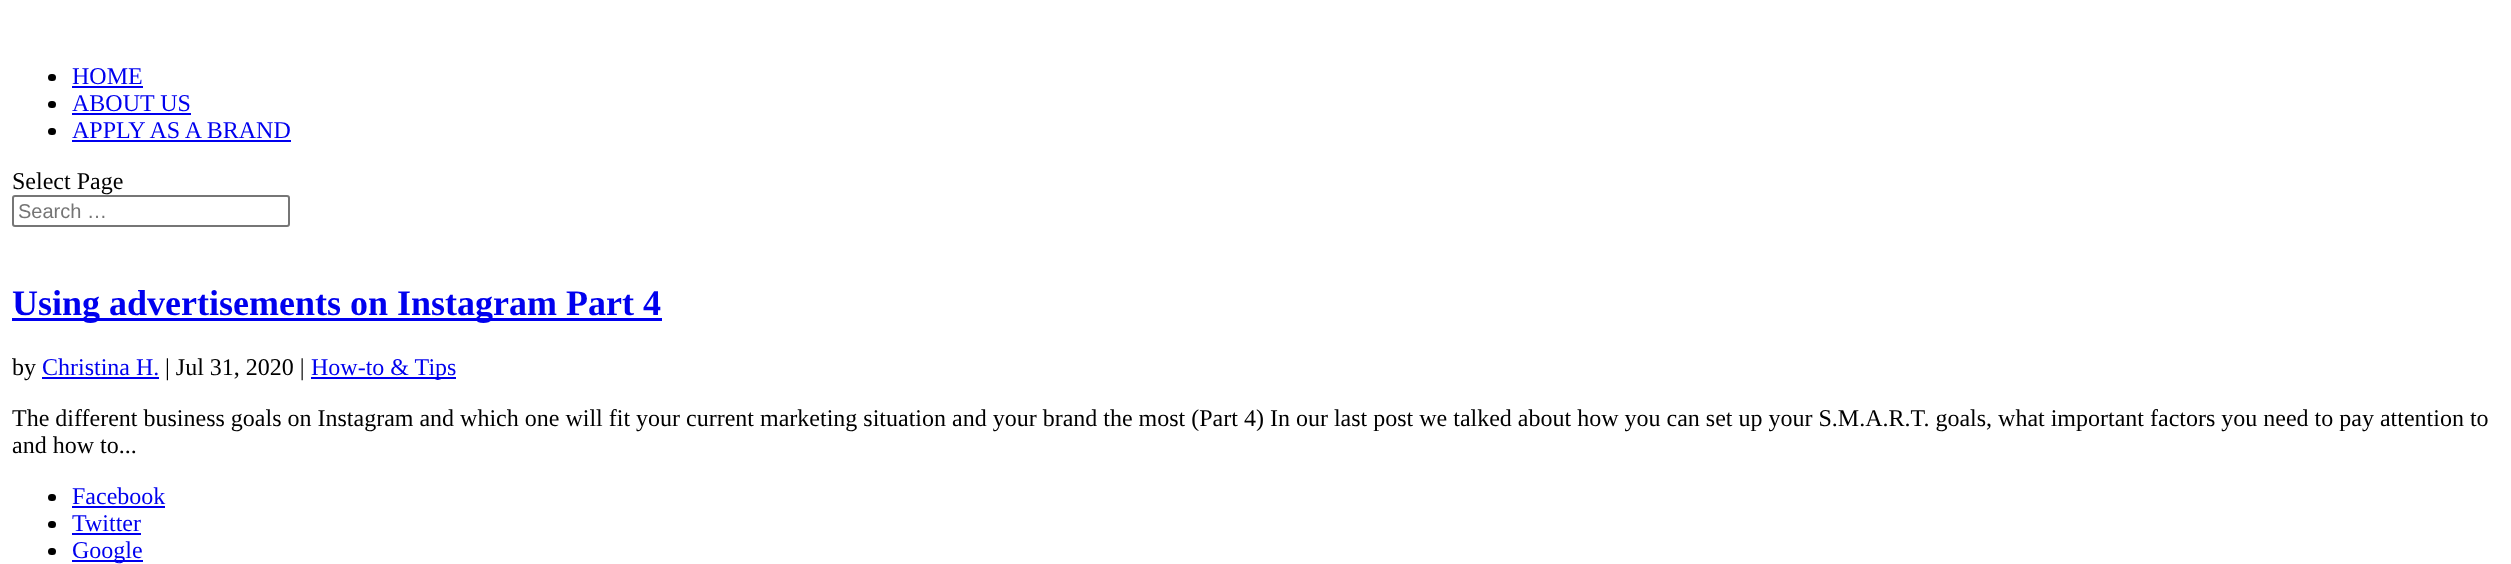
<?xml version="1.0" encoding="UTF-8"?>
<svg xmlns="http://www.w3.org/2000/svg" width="2511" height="564">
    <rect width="100%" height="100%" fill="#FFFFFF"/>
    <rect x="48" y="74" width="8" height="7" rx="3.5" fill="#000000"/>
    <text x="72" y="84" font-family="Liberation Serif" font-size="24" fill="#0000EE">HOME</text>
    <rect x="72" y="86" width="71" height="2" fill="#0000EE"/>
    <rect x="48" y="101" width="8" height="7" rx="3.5" fill="#000000"/>
    <text x="72" y="111" font-family="Liberation Serif" font-size="24" fill="#0000EE">ABOUT US</text>
    <rect x="72" y="113" width="119" height="2" fill="#0000EE"/>
    <rect x="48" y="128" width="8" height="7" rx="3.5" fill="#000000"/>
    <text x="72" y="138" font-family="Liberation Serif" font-size="24" fill="#0000EE">APPLY AS A BRAND</text>
    <rect x="72" y="140" width="219" height="2" fill="#0000EE"/>
    <text x="12" y="189" font-family="Liberation Serif" font-size="24" fill="#000000">Select Page</text>
    <rect x="13" y="196" width="276" height="30" rx="2" fill="none" stroke="#767676" stroke-width="2"/>
    <text x="18" y="218" font-family="Liberation Sans" font-size="20" fill="#757575">Search …</text>
    <rect x="12" y="318" width="650" height="3" fill="#0000EE"/>
    <text x="12" y="315" font-family="Liberation Serif" font-size="36" font-weight="700" fill="#0000EE">Using advertisements on Instagram Part 4</text>
    <text x="12" y="375" font-family="Liberation Serif" font-size="24" fill="#000000">by</text>
    <text x="42" y="375" font-family="Liberation Serif" font-size="24" fill="#0000EE">Christina H.</text>
    <rect x="42" y="377" width="117" height="2" fill="#0000EE"/>
    <text x="165" y="375" font-family="Liberation Serif" font-size="24" fill="#000000">| Jul 31, 2020 |</text>
    <rect x="311" y="377" width="145" height="2" fill="#0000EE"/>
    <text x="311" y="375" font-family="Liberation Serif" font-size="24" fill="#0000EE">How-to &amp; Tips</text>
    <text font-family="Liberation Serif" font-size="24" fill="#000000">
        <tspan x="12" y="426">The different business goals on Instagram and which one will fit your current marketing situation and your brand the most (Part 4) In our last post we talked about how you can set up your S.M.A.R.T. goals, what important factors you need to pay attention to</tspan>
        <tspan x="12" y="453">and how to...</tspan>
    </text>
    <rect x="48" y="494" width="8" height="7" rx="3.5" fill="#000000"/>
    <text x="72" y="504" font-family="Liberation Serif" font-size="24" fill="#0000EE">Facebook</text>
    <rect x="72" y="506" width="93" height="2" fill="#0000EE"/>
    <rect x="48" y="521" width="8" height="7" rx="3.5" fill="#000000"/>
    <text x="72" y="531" font-family="Liberation Serif" font-size="24" fill="#0000EE">Twitter</text>
    <rect x="72" y="533" width="69" height="2" fill="#0000EE"/>
    <rect x="48" y="548" width="8" height="7" rx="3.5" fill="#000000"/>
    <rect x="72" y="560" width="71" height="2" fill="#0000EE"/>
    <text x="72" y="558" font-family="Liberation Serif" font-size="24" fill="#0000EE">Google</text>
</svg>
